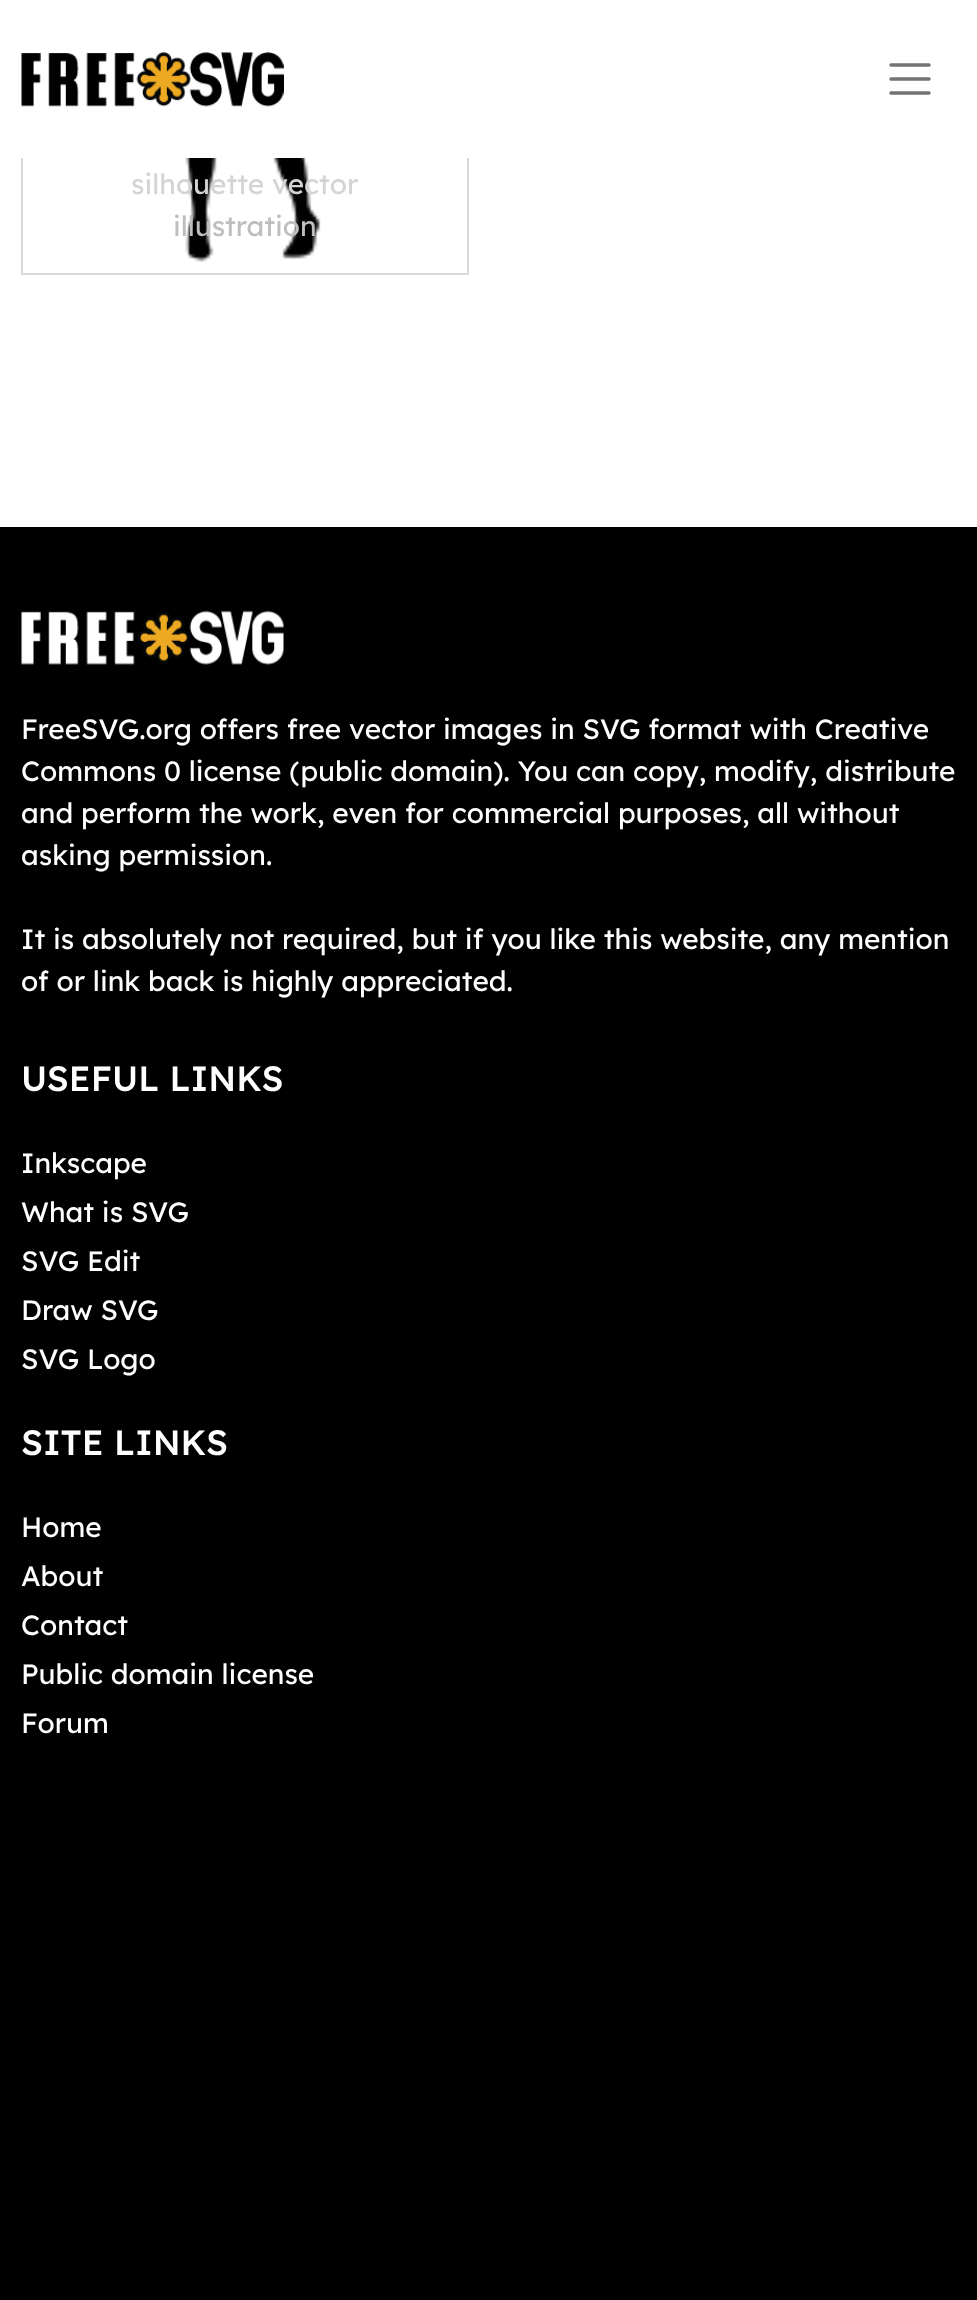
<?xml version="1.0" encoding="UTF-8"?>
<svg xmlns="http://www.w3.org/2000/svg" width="977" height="2300">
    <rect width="100%" height="100%" fill="#FFFFFF"/>
    <rect x="22" y="-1" width="446" height="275" fill="none" stroke="#D9D9D9" stroke-width="2"/>
    <rect x="21" y="0" width="448" height="158" fill="#FFFFFF"/>
    <image x="21" y="52" width="263" height="55" href="img_01.png"/>
    <path d="M 891 65 H 929 M 891 79 H 929 M 891 93 H 929" fill="none" stroke="#737373" stroke-width="3.5" stroke-linecap="round"/>
    <image x="185" y="158" width="136" height="104" href="img_02.png"/>
    <text x="131" y="194" font-family="Lexend" font-size="28" fill="#D4D4D4">silhouette vector</text>
    <text x="173" y="236" font-family="Lexend" font-size="28" fill="#BEBEBE">illustration</text>
    <rect x="0" y="527" width="977" height="1773" fill="#000000"/>
    <image x="21" y="610" width="263" height="55" href="img_03.png"/>
    <text font-family="Lexend" font-size="28" fill="#FFFFFF">
        <tspan x="21" y="739">FreeSVG.org offers free vector images in SVG format with Creative</tspan>
        <tspan x="21" y="781">Commons 0 license (public domain). You can copy, modify, distribute</tspan>
        <tspan x="21" y="823">and perform the work, even for commercial purposes, all without</tspan>
        <tspan x="21" y="865">asking permission.</tspan>
    </text>
    <text font-family="Lexend" font-size="28" fill="#FFFFFF">
        <tspan x="21" y="949">It is absolutely not required, but if you like this website, any mention</tspan>
        <tspan x="21" y="991">of or link back is highly appreciated.</tspan>
    </text>
    <text x="21" y="1091" font-family="Lexend" font-size="35" font-weight="500" fill="#FFFFFF">USEFUL LINKS</text>
    <text font-family="Lexend" font-size="28" fill="#FFFFFF">
        <tspan x="21" y="1173">Inkscape</tspan>
        <tspan x="21" y="1222">What is SVG</tspan>
        <tspan x="21" y="1271">SVG Edit</tspan>
        <tspan x="21" y="1320">Draw SVG</tspan>
        <tspan x="21" y="1369">SVG Logo</tspan>
    </text>
    <text x="21" y="1455" font-family="Lexend" font-size="35" font-weight="500" fill="#FFFFFF">SITE LINKS</text>
    <text font-family="Lexend" font-size="28" fill="#FFFFFF">
        <tspan x="21" y="1537">Home</tspan>
        <tspan x="21" y="1586">About</tspan>
        <tspan x="21" y="1635">Contact</tspan>
        <tspan x="21" y="1684">Public domain license</tspan>
        <tspan x="21" y="1733">Forum</tspan>
    </text>
</svg>
